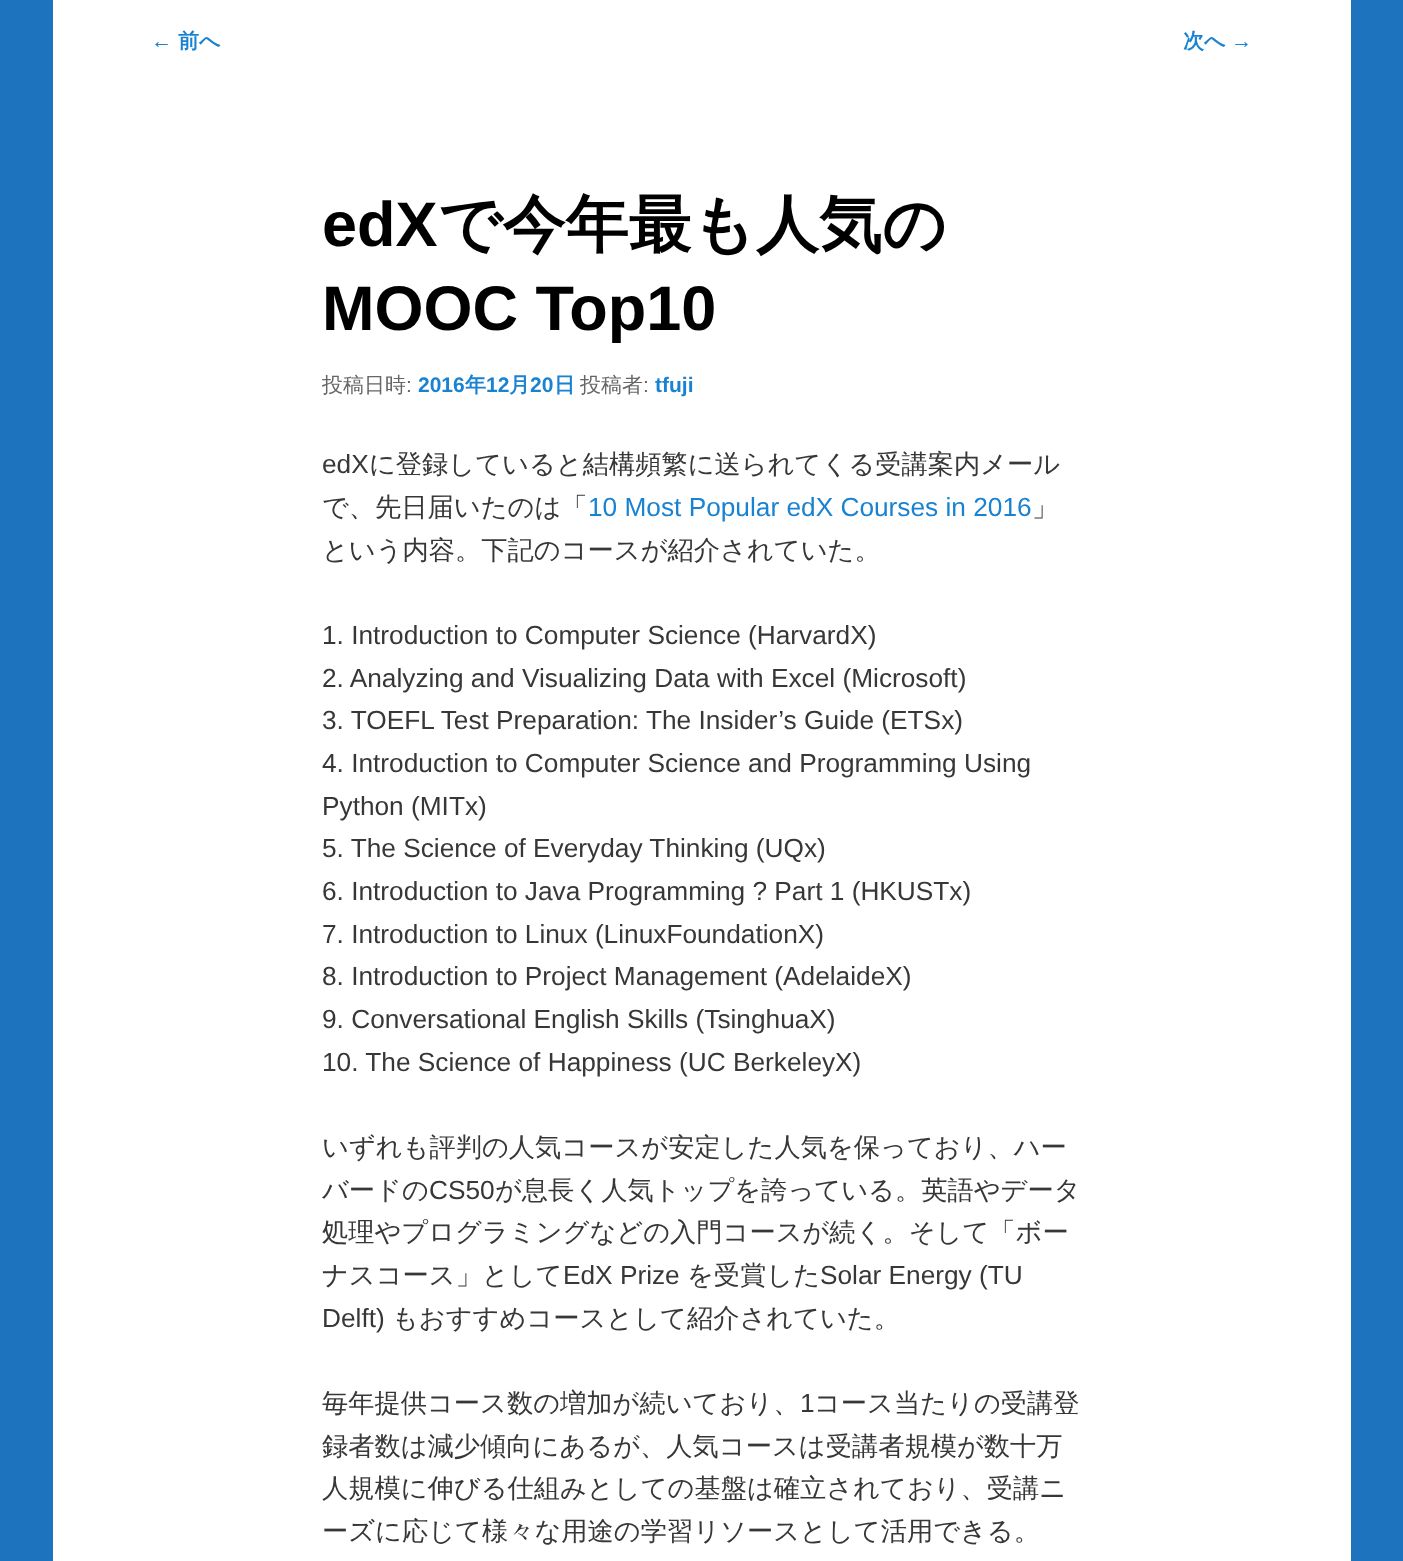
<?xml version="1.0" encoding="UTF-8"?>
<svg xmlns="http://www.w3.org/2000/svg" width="1403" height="1561">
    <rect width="100%" height="100%" fill="#1E73BE"/>
    <rect x="53" y="0" width="1298" height="1561" fill="#FFFFFF"/>
    <text x="151" y="48" font-family="Liberation Sans" font-size="21" fill="#1982D1">←</text>
    <text x="178" y="48" font-family="WenQuanYi Zen Hei" font-size="21" font-weight="700" fill="#1982D1">前へ</text>
    <text x="1183" y="48" font-family="WenQuanYi Zen Hei" font-size="21" font-weight="700" fill="#1982D1">次へ</text>
    <text x="1231" y="48" font-family="Liberation Sans" font-size="21" fill="#1982D1">→</text>
    <text x="322" y="246" font-family="Liberation Sans" font-size="63" font-weight="700" fill="#000000">edX</text>
    <text x="438" y="246" font-family="WenQuanYi Zen Hei" font-size="63" font-weight="700" fill="#000000">で今年最も人気の</text>
    <text x="322" y="330" font-family="Liberation Sans" font-size="63" font-weight="700" fill="#000000">MOOC Top10</text>
    <text x="322" y="392" font-family="WenQuanYi Zen Hei" font-size="21" font-weight="500" fill="#666666">投稿日時</text>
    <text x="406" y="392" font-family="Liberation Sans" font-size="21" fill="#666666">:</text>
    <text x="418" y="392" font-family="Liberation Sans" font-size="21" font-weight="700" fill="#1982D1">2016</text>
    <text x="465" y="392" font-family="WenQuanYi Zen Hei" font-size="21" font-weight="700" fill="#1982D1">年</text>
    <text x="486" y="392" font-family="Liberation Sans" font-size="21" font-weight="700" fill="#1982D1">12</text>
    <text x="509" y="392" font-family="WenQuanYi Zen Hei" font-size="21" font-weight="700" fill="#1982D1">月</text>
    <text x="530" y="392" font-family="Liberation Sans" font-size="21" font-weight="700" fill="#1982D1">20</text>
    <text x="554" y="392" font-family="WenQuanYi Zen Hei" font-size="21" font-weight="700" fill="#1982D1">日</text>
    <text x="580" y="392" font-family="WenQuanYi Zen Hei" font-size="21" font-weight="500" fill="#666666">投稿者</text>
    <text x="643" y="392" font-family="Liberation Sans" font-size="21" fill="#666666">:</text>
    <text x="655" y="392" font-family="Liberation Sans" font-size="21" font-weight="700" fill="#1982D1">tfuji</text>
    <text x="322" y="473" font-family="Liberation Sans" font-size="26.25" fill="#373737">edX</text>
    <text x="369" y="473" font-family="WenQuanYi Zen Hei" font-size="26.25" font-weight="500" fill="#373737">に登録していると結構頻繁に送られてくる受講案内メール</text>
    <text x="322" y="516" font-family="WenQuanYi Zen Hei" font-size="26.25" font-weight="500" fill="#373737">で、先日届いたのは「</text>
    <text x="588" y="516" font-family="Liberation Sans" font-size="26.25" fill="#1982D1">10 Most Popular edX Courses in 2016</text>
    <text x="1032" y="516" font-family="WenQuanYi Zen Hei" font-size="26.25" font-weight="500" fill="#373737">」</text>
    <text x="322" y="559" font-family="WenQuanYi Zen Hei" font-size="26.25" font-weight="500" fill="#373737">という内容。下記のコースが紹介されていた。</text>
    <text font-family="Liberation Sans" font-size="26.25" fill="#373737">
        <tspan x="322" y="644">1. Introduction to Computer Science (HarvardX)</tspan>
        <tspan x="322" y="687">2. Analyzing and Visualizing Data with Excel (Microsoft)</tspan>
        <tspan x="322" y="729">3. TOEFL Test Preparation: The Insider’s Guide (ETSx)</tspan>
        <tspan x="322" y="772">4. Introduction to Computer Science and Programming Using</tspan>
        <tspan x="322" y="815">Python (MITx)</tspan>
        <tspan x="322" y="857">5. The Science of Everyday Thinking (UQx)</tspan>
        <tspan x="322" y="900">6. Introduction to Java Programming ? Part 1 (HKUSTx)</tspan>
        <tspan x="322" y="943">7. Introduction to Linux (LinuxFoundationX)</tspan>
        <tspan x="322" y="985">8. Introduction to Project Management (AdelaideX)</tspan>
        <tspan x="322" y="1028">9. Conversational English Skills (TsinghuaX)</tspan>
        <tspan x="322" y="1071">10. The Science of Happiness (UC BerkeleyX)</tspan>
    </text>
    <text font-family="WenQuanYi Zen Hei" font-size="26.25" font-weight="500" fill="#373737">
        <tspan x="322" y="1156">いずれも評判の人気コースが安定した人気を保っており、ハー</tspan>
        <tspan x="322" y="1199">バードの</tspan>
    </text>
    <text x="429" y="1199" font-family="Liberation Sans" font-size="26.25" fill="#373737">CS50</text>
    <text x="495" y="1199" font-family="WenQuanYi Zen Hei" font-size="26.25" font-weight="500" fill="#373737">が息長く人気トップを誇っている。英語やデータ</text>
    <text font-family="WenQuanYi Zen Hei" font-size="26.25" font-weight="500" fill="#373737">
        <tspan x="322" y="1241">処理やプログラミングなどの入門コースが続く。そして「ボー</tspan>
        <tspan x="322" y="1284">ナスコース」として</tspan>
    </text>
    <text x="563" y="1284" font-family="Liberation Sans" font-size="26.25" fill="#373737">EdX Prize</text>
    <text x="687" y="1284" font-family="WenQuanYi Zen Hei" font-size="26.25" font-weight="500" fill="#373737">を受賞した</text>
    <text x="820" y="1284" font-family="Liberation Sans" font-size="26.25" fill="#373737">Solar Energy (TU</text>
    <text x="322" y="1327" font-family="Liberation Sans" font-size="26.25" fill="#373737">Delft)</text>
    <text x="392" y="1327" font-family="WenQuanYi Zen Hei" font-size="26.25" font-weight="500" fill="#373737">もおすすめコースとして紹介されていた。</text>
    <text x="322" y="1412" font-family="WenQuanYi Zen Hei" font-size="26.25" font-weight="500" fill="#373737">毎年提供コース数の増加が続いており、</text>
    <text x="800" y="1412" font-family="Liberation Sans" font-size="26.25" fill="#373737">1</text>
    <text x="814" y="1412" font-family="WenQuanYi Zen Hei" font-size="26.25" font-weight="500" fill="#373737">コース当たりの受講登</text>
    <text font-family="WenQuanYi Zen Hei" font-size="26.25" font-weight="500" fill="#373737">
        <tspan x="322" y="1455">録者数は減少傾向にあるが、人気コースは受講者規模が数十万</tspan>
        <tspan x="322" y="1497">人規模に伸びる仕組みとしての基盤は確立されており、受講ニ</tspan>
        <tspan x="322" y="1540">ーズに応じて様々な用途の学習リソースとして活用できる。</tspan>
    </text>
</svg>
